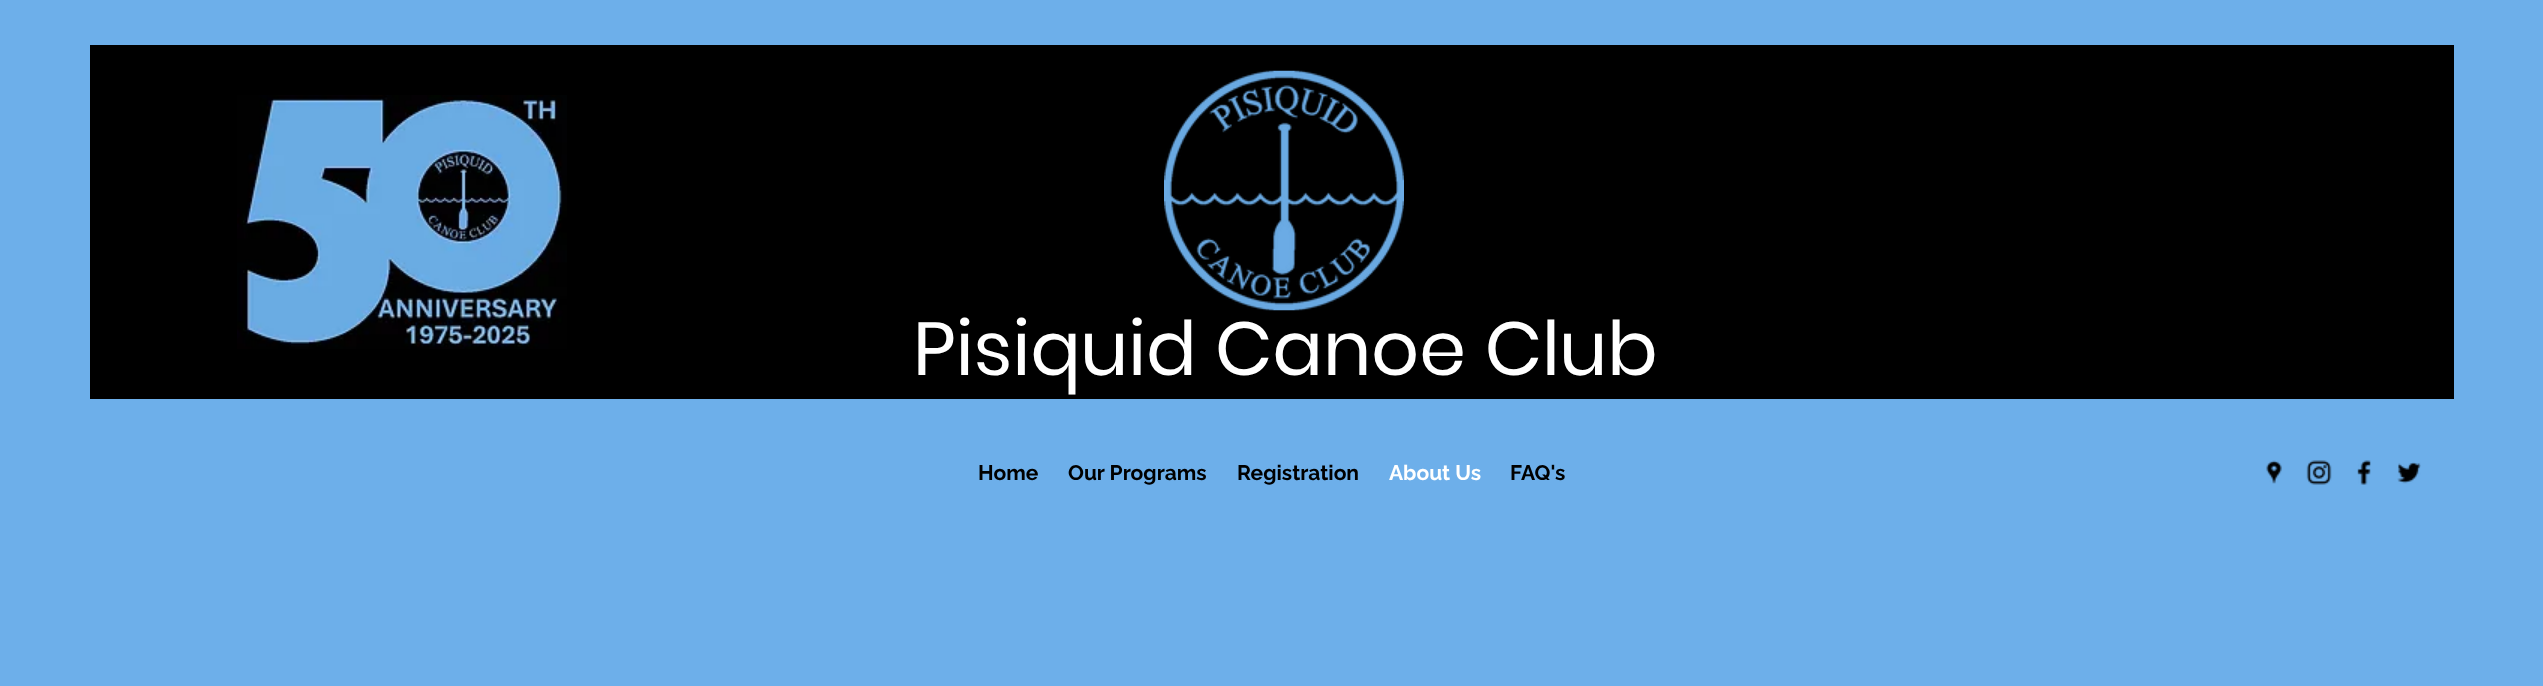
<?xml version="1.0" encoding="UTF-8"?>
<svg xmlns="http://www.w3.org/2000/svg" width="2543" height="686">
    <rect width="100%" height="100%" fill="#6DAFEA"/>
    <rect x="90" y="45" width="2364" height="354" fill="#000000"/>
    <image x="237" y="95" width="330" height="254" href="img_01.png"/>
    <image x="1164" y="70" width="240" height="241" href="img_02.png"/>
    <text x="913" y="375" font-family="Poppins" font-size="75" fill="#FFFFFF">Pisiquid Canoe Club</text>
    <text x="978" y="480" font-family="Raleway" font-size="21" font-weight="700" fill="#000000">Home</text>
    <text x="1068" y="480" font-family="Raleway" font-size="21" font-weight="700" fill="#000000">Our Programs</text>
    <text x="1237" y="480" font-family="Raleway" font-size="21" font-weight="700" fill="#000000">Registration</text>
    <text x="1389" y="480" font-family="Raleway" font-size="21" font-weight="700" fill="#FFFFFF">About Us</text>
    <text x="1510" y="480" font-family="Raleway" font-size="21" font-weight="700" fill="#000000">FAQ's</text>
    <image x="2266" y="460" width="16" height="24" href="img_03.png"/>
    <image x="2306" y="460" width="26" height="25" href="img_04.png"/>
    <image x="2357" y="460" width="14" height="25" href="img_05.png"/>
    <image x="2397" y="462" width="24" height="22" href="img_06.png"/>
</svg>
